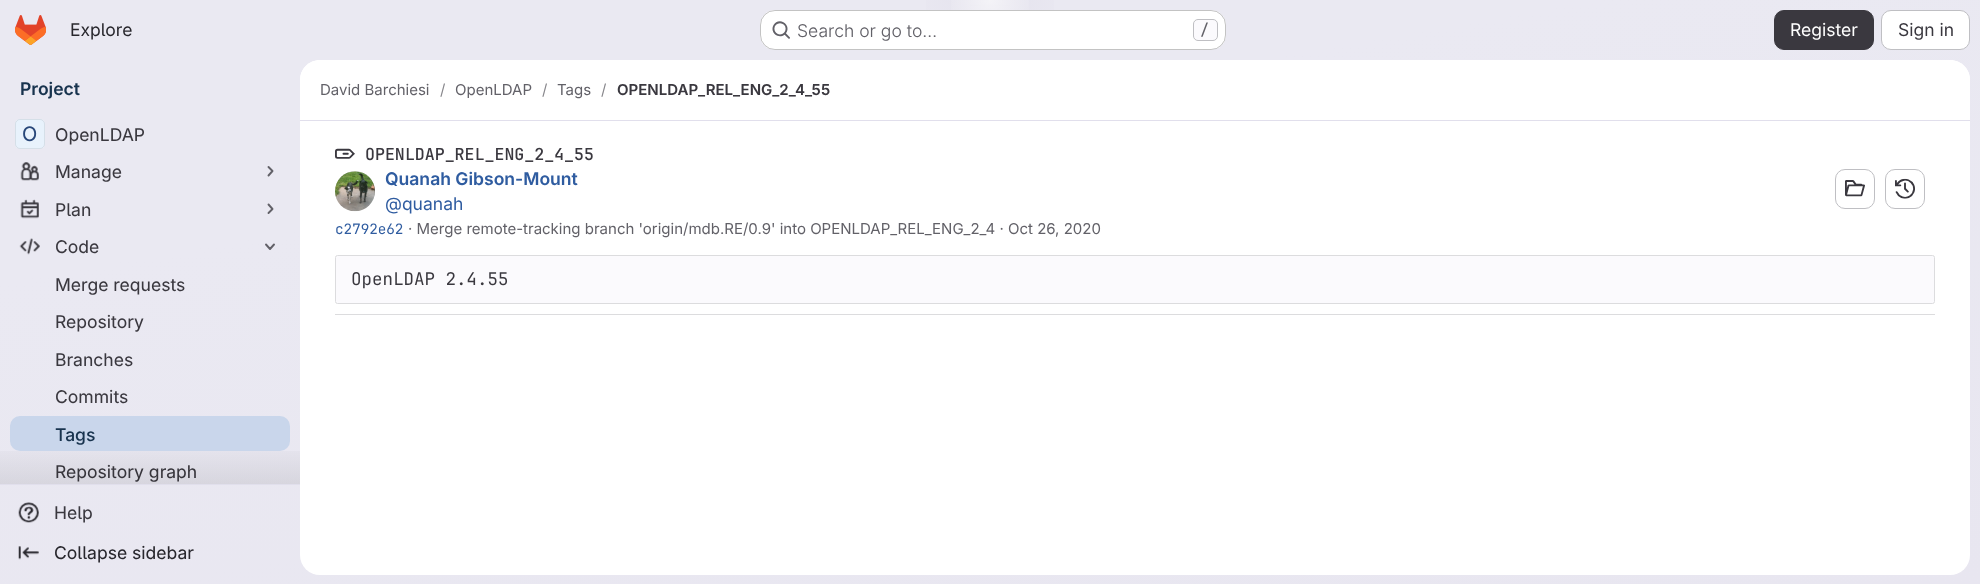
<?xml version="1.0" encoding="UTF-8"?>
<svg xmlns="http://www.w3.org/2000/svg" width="1980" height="584">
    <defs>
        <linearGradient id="g1" gradientUnits="userSpaceOnUse" x1="1070" y1="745" x2="910" y2="-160"><stop offset="0" stop-color="#E8E6F0"/><stop offset="0.7" stop-color="#EAE9F2"/></linearGradient>
        <radialGradient id="g2" gradientUnits="userSpaceOnUse" cx="0" cy="0" r="1" gradientTransform="matrix(990 0 0 585 990 0)"><stop offset="0" stop-color="#E4E2ED"/><stop offset="0.09" stop-color="#E4E2ED" stop-opacity="0"/></radialGradient>
        <radialGradient id="g3" gradientUnits="userSpaceOnUse" cx="0" cy="0" r="1" gradientTransform="matrix(990 0 0 585 990 0)"><stop offset="0" stop-color="#E4E2EC"/><stop offset="0.06" stop-color="#E4E2EC" stop-opacity="0"/></radialGradient>
        <radialGradient id="g4" gradientUnits="userSpaceOnUse" cx="990" cy="0" r="1150"><stop offset="0" stop-color="#FFFFFF" stop-opacity="0.6"/><stop offset="0.04" stop-color="#FFFFFF" stop-opacity="0"/></radialGradient>
        <linearGradient id="g5" gradientUnits="userSpaceOnUse" x1="150" y1="439" x2="150" y2="484"><stop offset="0" stop-color="#050506" stop-opacity="0"/><stop offset="1" stop-color="#050506" stop-opacity="0.08"/></linearGradient>
    </defs>
    <rect width="100%" height="100%" fill="#FFFFFF"/>
    <rect x="0" y="0" width="1980" height="584" fill="url(#g1)"/>
    <rect x="926" y="0" width="128" height="38" fill="url(#g2)"/>
    <rect x="970" y="5" width="40" height="1" fill="url(#g3)"/>
    <rect x="951" y="0" width="78" height="10" fill="url(#g4)"/>
    <image x="15" y="15" width="31" height="30" href="img_01.png"/>
    <text x="70" y="36" font-family="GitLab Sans" font-size="17.5" fill="#28272D">Explore</text>
    <rect x="760" y="10" width="466" height="40" rx="15" fill="#FFFFFF"/>
    <rect x="760.5" y="10.5" width="465" height="39" rx="14.5" fill="none" stroke="#050506" stroke-opacity="0.24"/>
    <image x="772" y="21" width="18" height="18" href="img_02.png"/>
    <text x="797" y="37" font-family="GitLab Sans" font-size="17.5" font-weight="300" fill="#626168">Search or go to…</text>
    <rect x="1193.5" y="19.5" width="24" height="21" rx="4.5" fill="#FBFAFD" stroke="#BFBFC3"/>
    <text x="1200" y="35" font-family="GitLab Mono" font-size="15" font-weight="500" fill="#626168">/</text>
    <rect x="1774.5" y="10.5" width="99" height="39" rx="9.5" fill="#3A383F" stroke="#3A383F"/>
    <text x="1790" y="36" font-family="GitLab Sans" font-size="17.5" fill="#FFFFFF">Register</text>
    <rect x="1881.5" y="10.5" width="88" height="39" rx="9.5" fill="#FFFFFF" stroke="#BFBFC3"/>
    <text x="1898" y="36" font-family="GitLab Sans" font-size="17.5" fill="#3A383F">Sign in</text>
    <text x="20" y="95" font-family="GitLab Sans" font-size="17.5" font-weight="600" fill="#18334E">Project</text>
    <rect x="0" y="484" width="300" height="1" fill="#E1DFEC"/>
    <rect x="15" y="119" width="30" height="30" rx="5" fill="#FFFFFF"/>
    <rect x="15" y="119" width="30" height="30" rx="5" fill="#9DC7F1" fill-opacity="0.24"/>
    <rect x="15.5" y="119.5" width="29" height="29" rx="4.5" fill="none" stroke="#050506" stroke-opacity="0.08"/>
    <text x="22" y="141" font-family="'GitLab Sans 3'" font-size="20" fill="#284779">O</text>
    <text x="55" y="141" font-family="'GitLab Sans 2'" font-size="17.5" fill="#3A383F">OpenLDAP</text>
    <image x="20" y="162" width="19" height="19" href="img_03.png"/>
    <text x="55" y="178" font-family="'GitLab Sans 2'" font-size="17.5" fill="#3A383F">Manage</text>
    <path d="M 268.5 167 L 272.5 171 L 268.5 175.5" fill="none" stroke="#626168" stroke-width="1.9" stroke-linecap="round" stroke-linejoin="round"/>
    <image x="20" y="199" width="19" height="20" href="img_04.png"/>
    <text x="55" y="216" font-family="'GitLab Sans 2'" font-size="17.5" fill="#3A383F">Plan</text>
    <path d="M 268.5 204.5 L 272.5 209 L 268.5 213" fill="none" stroke="#626168" stroke-width="1.9" stroke-linecap="round" stroke-linejoin="round"/>
    <image x="19" y="238" width="21" height="17" href="img_05.png"/>
    <text x="55" y="253" font-family="'GitLab Sans 2'" font-size="17.5" fill="#3A383F">Code</text>
    <path d="M 274 244.5 L 270 249 L 266 244.5" fill="none" stroke="#626168" stroke-width="1.9" stroke-linecap="round" stroke-linejoin="round"/>
    <text x="55" y="291" font-family="'GitLab Sans 2'" font-size="17.5" fill="#3A383F">Merge requests</text>
    <text x="55" y="328" font-family="'GitLab Sans 2'" font-size="17.5" fill="#3A383F">Repository</text>
    <text x="55" y="366" font-family="'GitLab Sans 2'" font-size="17.5" fill="#3A383F">Branches</text>
    <text x="55" y="403" font-family="'GitLab Sans 2'" font-size="17.5" fill="#3A383F">Commits</text>
    <rect x="10" y="416" width="280" height="35" rx="10" fill="#C9D6EB"/>
    <text x="55" y="441" font-family="GitLab Sans" font-size="17.5" font-weight="500" fill="#18334E">Tags</text>
    <text x="55" y="478" font-family="'GitLab Sans 2'" font-size="17.5" fill="#3A383F">Repository graph</text>
    <rect x="0" y="451" width="300" height="33" fill="url(#g5)"/>
    <image x="18" y="502" width="21" height="21" href="img_06.png"/>
    <text x="54" y="519" font-family="'GitLab Sans 2'" font-size="17.5" fill="#3A383F">Help</text>
    <image x="18" y="546" width="21" height="14" href="img_07.png"/>
    <text x="54" y="559" font-family="'GitLab Sans 2'" font-size="17.5" fill="#28272D">Collapse sidebar</text>
    <rect x="300" y="60" width="1670" height="515" rx="20" fill="#FFFFFF"/>
    <path d="M 320 60 H 1950 C 1961 60 1970 69 1970 80 V 121 H 300 V 80 C 300 69 309 60 320 60 Z" fill="#FFFFFF"/>
    <rect x="300" y="120" width="1670" height="1" fill="#E1DFEC"/>
    <text x="320" y="95" font-family="GitLab Sans" font-size="15" fill="#626168">David Barchiesi</text>
    <text x="440" y="95" font-family="GitLab Sans" font-size="15" fill="#89888D">/</text>
    <text x="455" y="95" font-family="GitLab Sans" font-size="15" fill="#626168">OpenLDAP</text>
    <text x="542" y="95" font-family="GitLab Sans" font-size="15" fill="#89888D">/</text>
    <text x="557" y="95" font-family="GitLab Sans" font-size="15" fill="#626168">Tags</text>
    <text x="601" y="95" font-family="GitLab Sans" font-size="15" fill="#89888D">/</text>
    <text x="617" y="95" font-family="GitLab Sans" font-size="15" font-weight="600" fill="#3A383F">OPENLDAP_REL_ENG_2_4_55</text>
    <rect x="335" y="314" width="1600" height="1" fill="#DCDCDE"/>
    <image x="335" y="148" width="20" height="11" href="img_08.png"/>
    <text x="365" y="160" font-family="GitLab Mono" font-size="16.6" font-weight="600" fill="#3A383F">OPENLDAP_REL_ENG_2_4_55</text>
    <circle cx="355" cy="191" r="19.5" fill="none" stroke="#E8E7E9"/>
    <image x="335" y="171" width="40" height="41" href="img_09.png"/>
    <text x="385" y="185" font-family="GitLab Sans" font-size="17.5" font-weight="600" fill="#2F5CA0">Quanah Gibson-Mount</text>
    <text x="385" y="210" font-family="GitLab Sans" font-size="17.5" fill="#2F5CA0">@quanah</text>
    <text x="335" y="234" font-family="GitLab Mono" font-size="14.25" fill="#2F5CA0">c2792e62</text>
    <text x="408" y="234" font-family="GitLab Sans" font-size="15" fill="#626168">· Merge remote-tracking branch 'origin/mdb.RE/0.9' into OPENLDAP_REL_ENG_2_4 · Oct 26, 2020</text>
    <rect x="1835.5" y="169.5" width="39" height="39" rx="9.5" fill="none" stroke="#BFBFC3"/>
    <image x="1845" y="180" width="20" height="17" href="img_10.png"/>
    <rect x="1885.5" y="169.5" width="39" height="39" rx="9.5" fill="none" stroke="#BFBFC3"/>
    <image x="1895" y="178" width="20" height="21" href="img_11.png"/>
    <rect x="335.5" y="255.5" width="1599" height="48" rx="2" fill="#FBFAFD" stroke="#DCDCDE"/>
    <text x="351" y="285" font-family="GitLab Mono" font-size="17.5" fill="#3A383F">OpenLDAP 2.4.55</text>
</svg>
